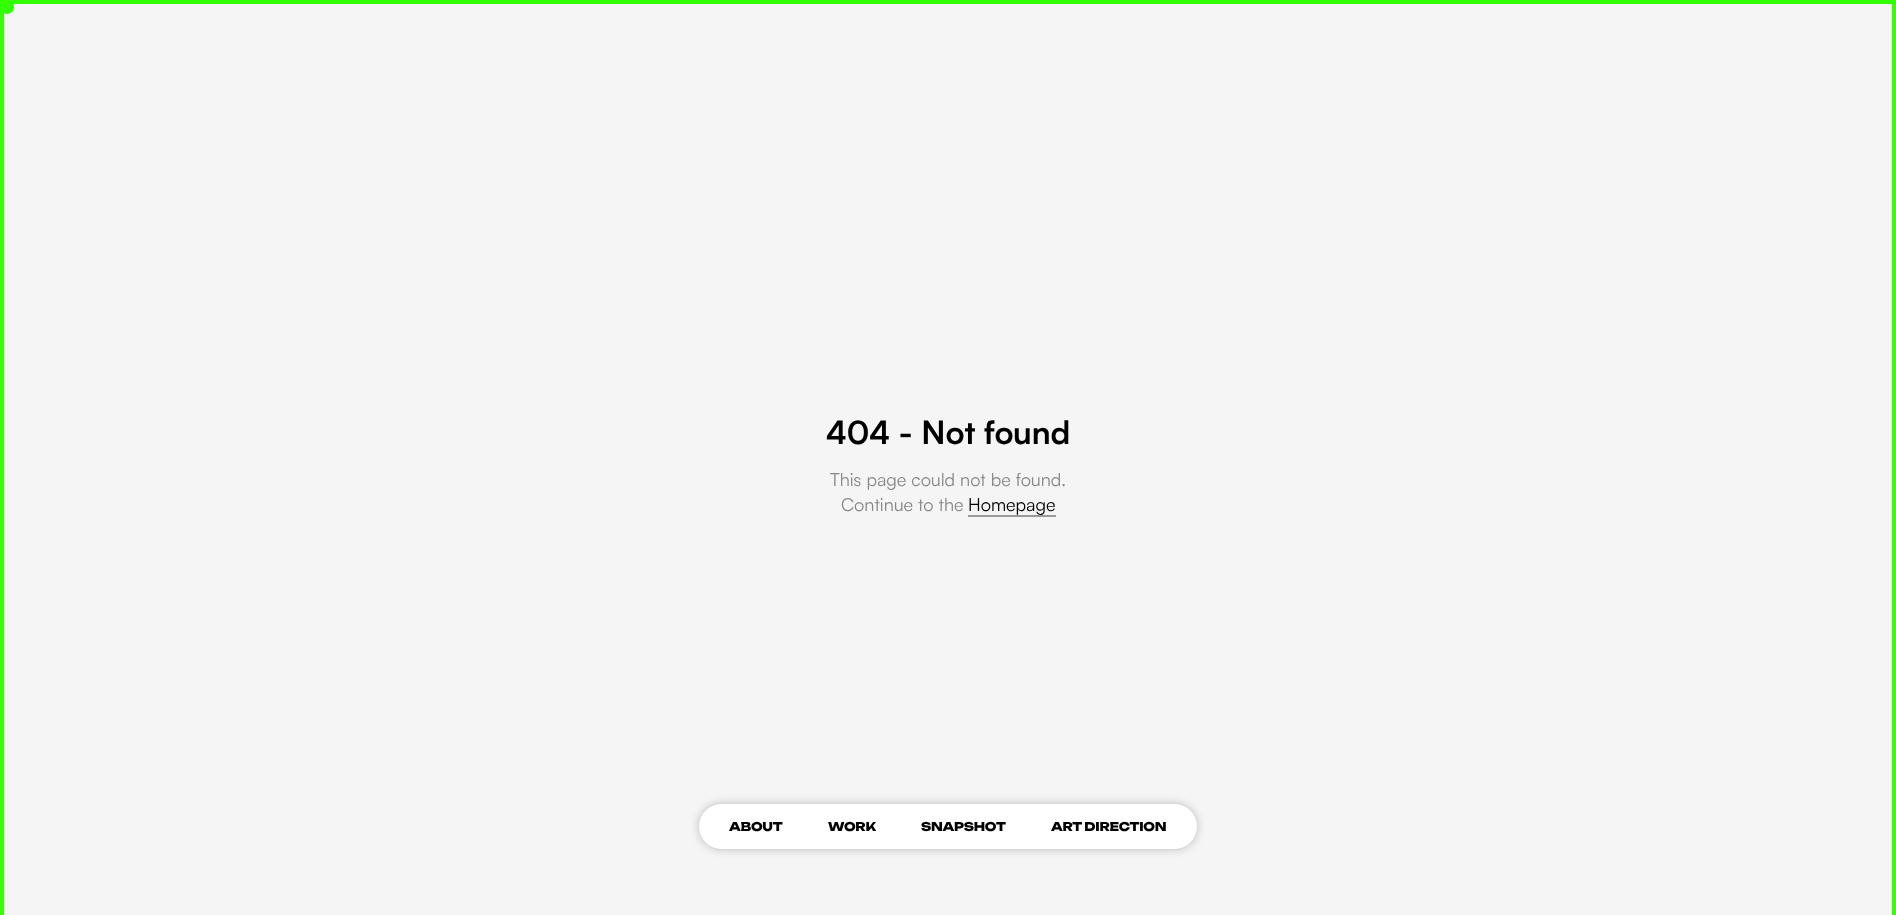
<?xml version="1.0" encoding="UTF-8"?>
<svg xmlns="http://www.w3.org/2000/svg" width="1896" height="915">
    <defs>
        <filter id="blur1" x="-50%" y="-200%" width="200%" height="500%"><feGaussianBlur stdDeviation="5"/></filter>
    </defs>
    <rect width="100%" height="100%" fill="#33FF00"/>
    <rect x="4" y="4" width="1888" height="911" fill="#F5F5F5"/>
    <circle cx="7" cy="7" r="7" fill="#33FF00"/>
    <text x="826" y="444" font-family="Satoshi" font-size="32" font-weight="700" fill="#000000">404 - Not found</text>
    <text x="830" y="486" font-family="Satoshi" font-size="18" fill="#888888">This page could not be found.</text>
    <text x="841" y="511" font-family="Satoshi" font-size="18" fill="#888888">Continue to the</text>
    <text x="968" y="511" font-family="Satoshi" font-size="18" fill="#000000">Homepage</text>
    <rect x="968" y="515" width="88" height="2" fill="#999999"/>
    <rect x="699" y="804" width="498" height="45" rx="22.5" fill="#000000" fill-opacity="0.25" filter="url(#blur1)"/>
    <rect x="699" y="804" width="498" height="45" rx="22.5" fill="#FFFFFF"/>
    <text x="729" y="831" font-family="Unbounded" font-size="12" font-weight="800" letter-spacing="-0.25" fill="#000000">ABOUT</text>
    <text x="828" y="831" font-family="Unbounded" font-size="12" font-weight="800" letter-spacing="-0.25" fill="#000000">WORK</text>
    <text x="921" y="831" font-family="Unbounded" font-size="12" font-weight="800" letter-spacing="-0.25" fill="#000000">SNAPSHOT</text>
    <text x="1051" y="831" font-family="Unbounded" font-size="12" font-weight="800" letter-spacing="-0.25" fill="#000000">ART DIRECTION</text>
</svg>
